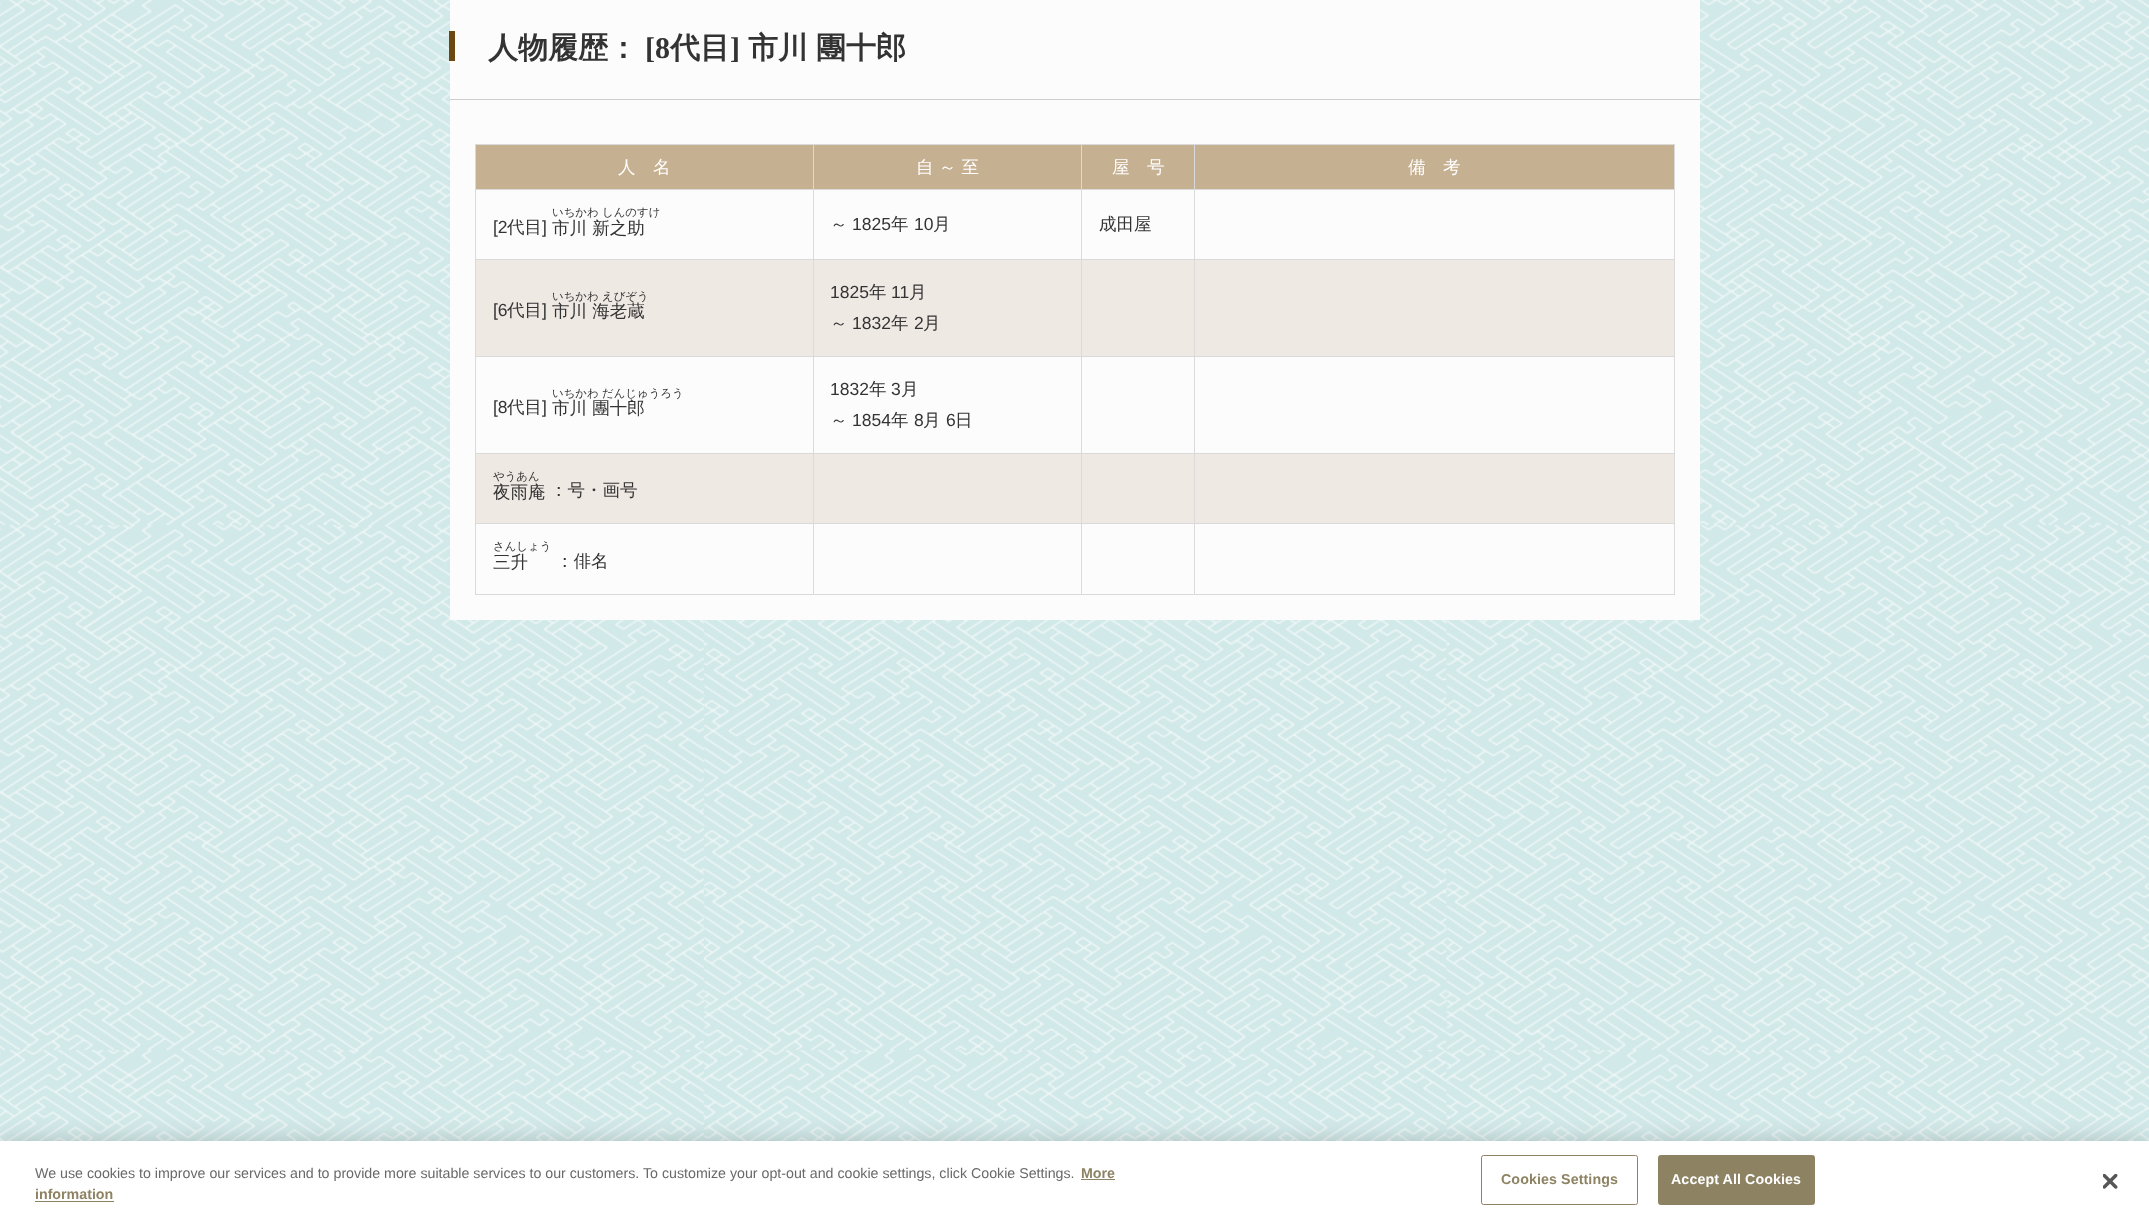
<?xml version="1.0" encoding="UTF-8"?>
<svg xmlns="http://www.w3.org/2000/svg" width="2149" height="1222">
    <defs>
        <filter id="blur1" x="-50%" y="-200%" width="200%" height="500%"><feGaussianBlur stdDeviation="11"/></filter>
    </defs>
    <rect width="100%" height="100%" fill="#FFFFFF"/>
    <image x="0" y="0" width="2149" height="1141" href="img_01.png"/>
    <rect x="450" y="0" width="1250" height="620" fill="#FCFCFC"/>
    <rect x="450" y="99" width="1250" height="1" fill="#CDCDCD"/>
    <rect x="449" y="31" width="6" height="30" fill="#6C4710"/>
    <text x="488" y="58" font-family="WenQuanYi Zen Hei" font-size="30" font-weight="700" fill="#333333">人物履歴：</text>
    <text x="645" y="58" font-family="Liberation Serif" font-size="30" font-weight="700" fill="#333333">[8</text>
    <text x="670" y="58" font-family="WenQuanYi Zen Hei" font-size="30" font-weight="700" fill="#333333">代目</text>
    <text x="730" y="58" font-family="Liberation Serif" font-size="30" font-weight="700" fill="#333333">]</text>
    <text x="748" y="58" word-spacing="-1" font-family="WenQuanYi Zen Hei" font-size="30" font-weight="700" fill="#333333">市川 團十郎</text>
    <rect x="476" y="145" width="337" height="44" fill="#C5B092"/>
    <rect x="1194" y="144" width="481" height="1" fill="#DADADA"/>
    <rect x="1194" y="189" width="481" height="1" fill="#DADADA"/>
    <rect x="1194" y="259" width="481" height="1" fill="#DADADA"/>
    <rect x="1194" y="356" width="481" height="1" fill="#DADADA"/>
    <rect x="1194" y="453" width="481" height="1" fill="#DADADA"/>
    <rect x="1194" y="523" width="481" height="1" fill="#DADADA"/>
    <rect x="1674" y="523" width="1" height="72" fill="#DADADA"/>
    <rect x="1194" y="594" width="481" height="1" fill="#DADADA"/>
    <rect x="1194" y="523" width="1" height="72" fill="#DADADA"/>
    <rect x="1081" y="523" width="114" height="1" fill="#DADADA"/>
    <rect x="1194" y="453" width="1" height="71" fill="#DADADA"/>
    <rect x="1081" y="453" width="114" height="1" fill="#DADADA"/>
    <rect x="1194" y="356" width="1" height="98" fill="#DADADA"/>
    <rect x="1081" y="356" width="114" height="1" fill="#DADADA"/>
    <rect x="1194" y="259" width="1" height="99" fill="#DADADA"/>
    <rect x="1081" y="259" width="114" height="1" fill="#DADADA"/>
    <rect x="1194" y="189" width="1" height="71" fill="#DADADA"/>
    <rect x="1081" y="189" width="114" height="1" fill="#DADADA"/>
    <rect x="1194" y="144" width="1" height="46" fill="#DADADA"/>
    <rect x="1081" y="144" width="114" height="1" fill="#DADADA"/>
    <rect x="814" y="145" width="380" height="44" fill="#C5B092"/>
    <rect x="814" y="260" width="380" height="96" fill="#EFE9E4"/>
    <rect x="814" y="454" width="380" height="69" fill="#EFE9E4"/>
    <rect x="1081" y="594" width="114" height="1" fill="#DADADA"/>
    <rect x="1081" y="523" width="1" height="72" fill="#DADADA"/>
    <rect x="813" y="523" width="270" height="1" fill="#DADADA"/>
    <rect x="1081" y="453" width="1" height="71" fill="#DADADA"/>
    <rect x="813" y="453" width="270" height="1" fill="#DADADA"/>
    <rect x="1081" y="356" width="1" height="98" fill="#DADADA"/>
    <rect x="813" y="356" width="270" height="1" fill="#DADADA"/>
    <rect x="1081" y="259" width="1" height="99" fill="#DADADA"/>
    <rect x="813" y="259" width="270" height="1" fill="#DADADA"/>
    <rect x="1081" y="189" width="1" height="71" fill="#DADADA"/>
    <rect x="813" y="189" width="270" height="1" fill="#DADADA"/>
    <rect x="1081" y="144" width="1" height="46" fill="#DADADA"/>
    <rect x="813" y="144" width="270" height="1" fill="#DADADA"/>
    <rect x="813" y="594" width="270" height="1" fill="#DADADA"/>
    <rect x="813" y="523" width="1" height="72" fill="#DADADA"/>
    <rect x="475" y="523" width="339" height="1" fill="#DADADA"/>
    <rect x="813" y="453" width="1" height="71" fill="#DADADA"/>
    <rect x="475" y="453" width="339" height="1" fill="#DADADA"/>
    <rect x="813" y="356" width="1" height="98" fill="#DADADA"/>
    <rect x="475" y="356" width="339" height="1" fill="#DADADA"/>
    <rect x="813" y="259" width="1" height="99" fill="#DADADA"/>
    <rect x="475" y="259" width="339" height="1" fill="#DADADA"/>
    <rect x="813" y="189" width="1" height="71" fill="#DADADA"/>
    <rect x="475" y="189" width="339" height="1" fill="#DADADA"/>
    <rect x="813" y="144" width="1" height="46" fill="#DADADA"/>
    <rect x="475" y="144" width="339" height="1" fill="#DADADA"/>
    <rect x="475" y="594" width="339" height="1" fill="#DADADA"/>
    <rect x="475" y="523" width="1" height="72" fill="#DADADA"/>
    <rect x="475" y="453" width="1" height="71" fill="#DADADA"/>
    <rect x="475" y="356" width="1" height="98" fill="#DADADA"/>
    <rect x="475" y="259" width="1" height="99" fill="#DADADA"/>
    <rect x="475" y="189" width="1" height="71" fill="#DADADA"/>
    <rect x="475" y="144" width="1" height="46" fill="#DADADA"/>
    <text x="618" y="173" font-family="WenQuanYi Zen Hei" font-size="17.5" font-weight="500" fill="#FFFFFF">人　名</text>
    <text x="916" y="173" font-family="WenQuanYi Zen Hei" font-size="17.5" font-weight="500" fill="#FFFFFF">自 ～ 至</text>
    <text x="1112" y="173" font-family="WenQuanYi Zen Hei" font-size="17.5" font-weight="500" fill="#FFFFFF">屋　号</text>
    <rect x="1195" y="145" width="479" height="44" fill="#C5B092"/>
    <rect x="1674" y="453" width="1" height="71" fill="#DADADA"/>
    <rect x="1674" y="356" width="1" height="98" fill="#DADADA"/>
    <rect x="1674" y="259" width="1" height="99" fill="#DADADA"/>
    <rect x="1674" y="189" width="1" height="71" fill="#DADADA"/>
    <rect x="1674" y="144" width="1" height="46" fill="#DADADA"/>
    <text x="1408" y="173" font-family="WenQuanYi Zen Hei" font-size="17.5" font-weight="500" fill="#FFFFFF">備　考</text>
    <text x="493" y="233" font-family="Liberation Sans" font-size="17.5" fill="#333333">[2</text>
    <text x="507" y="233" font-family="WenQuanYi Zen Hei" font-size="17.5" font-weight="500" fill="#333333">代目</text>
    <text x="542" y="233" font-family="Liberation Sans" font-size="17.5" fill="#333333">]</text>
    <text x="552" y="216" font-family="WenQuanYi Zen Hei" font-size="11.4" font-weight="500" fill="#333333">いちかわ しんのすけ</text>
    <text x="552" y="234" font-family="WenQuanYi Zen Hei" font-size="17.5" font-weight="500" fill="#333333">市川 新之助</text>
    <text x="830" y="230" font-family="WenQuanYi Zen Hei" font-size="17.5" font-weight="500" fill="#333333">～</text>
    <text x="852" y="230" font-family="Liberation Sans" font-size="17.5" fill="#333333">1825</text>
    <text x="891" y="230" font-family="WenQuanYi Zen Hei" font-size="17.5" font-weight="500" fill="#333333">年</text>
    <text x="914" y="230" font-family="Liberation Sans" font-size="17.5" fill="#333333">10</text>
    <text x="933" y="230" font-family="WenQuanYi Zen Hei" font-size="17.5" font-weight="500" fill="#333333">月</text>
    <text x="1099" y="230" font-family="WenQuanYi Zen Hei" font-size="17.5" font-weight="500" fill="#333333">成田屋</text>
    <rect x="476" y="260" width="337" height="96" fill="#EFE9E4"/>
    <text x="493" y="316" font-family="Liberation Sans" font-size="17.5" fill="#333333">[6</text>
    <text x="507" y="316" font-family="WenQuanYi Zen Hei" font-size="17.5" font-weight="500" fill="#333333">代目</text>
    <text x="542" y="316" font-family="Liberation Sans" font-size="17.5" fill="#333333">]</text>
    <text x="552" y="300" font-family="WenQuanYi Zen Hei" font-size="11.4" font-weight="500" fill="#333333">いちかわ えびぞう</text>
    <text x="552" y="317" font-family="WenQuanYi Zen Hei" font-size="17.5" font-weight="500" fill="#333333">市川 海老蔵</text>
    <text x="830" y="298" font-family="Liberation Sans" font-size="17.5" fill="#333333">1825</text>
    <text x="869" y="298" font-family="WenQuanYi Zen Hei" font-size="17.5" font-weight="500" fill="#333333">年</text>
    <text x="891" y="298" font-family="Liberation Sans" font-size="17.5" fill="#333333">11</text>
    <text x="909" y="298" font-family="WenQuanYi Zen Hei" font-size="17.5" font-weight="500" fill="#333333">月</text>
    <text x="830" y="329" font-family="WenQuanYi Zen Hei" font-size="17.5" font-weight="500" fill="#333333">～</text>
    <text x="852" y="329" font-family="Liberation Sans" font-size="17.5" fill="#333333">1832</text>
    <text x="891" y="329" font-family="WenQuanYi Zen Hei" font-size="17.5" font-weight="500" fill="#333333">年</text>
    <text x="914" y="329" font-family="Liberation Sans" font-size="17.5" fill="#333333">2</text>
    <text x="923" y="329" font-family="WenQuanYi Zen Hei" font-size="17.5" font-weight="500" fill="#333333">月</text>
    <rect x="1195" y="260" width="479" height="96" fill="#EFE9E4"/>
    <text x="493" y="413" font-family="Liberation Sans" font-size="17.5" fill="#333333">[8</text>
    <text x="507" y="413" font-family="WenQuanYi Zen Hei" font-size="17.5" font-weight="500" fill="#333333">代目</text>
    <text x="542" y="413" font-family="Liberation Sans" font-size="17.5" fill="#333333">]</text>
    <text x="552" y="397" font-family="WenQuanYi Zen Hei" font-size="11.4" font-weight="500" fill="#333333">いちかわ だんじゅうろう</text>
    <text x="552" y="414" font-family="WenQuanYi Zen Hei" font-size="17.5" font-weight="500" fill="#333333">市川 團十郎</text>
    <text x="830" y="395" font-family="Liberation Sans" font-size="17.5" fill="#333333">1832</text>
    <text x="869" y="395" font-family="WenQuanYi Zen Hei" font-size="17.5" font-weight="500" fill="#333333">年</text>
    <text x="891" y="395" font-family="Liberation Sans" font-size="17.5" fill="#333333">3</text>
    <text x="901" y="395" font-family="WenQuanYi Zen Hei" font-size="17.5" font-weight="500" fill="#333333">月</text>
    <text x="830" y="426" font-family="WenQuanYi Zen Hei" font-size="17.5" font-weight="500" fill="#333333">～</text>
    <text x="852" y="426" font-family="Liberation Sans" font-size="17.5" fill="#333333">1854</text>
    <text x="891" y="426" font-family="WenQuanYi Zen Hei" font-size="17.5" font-weight="500" fill="#333333">年</text>
    <text x="914" y="426" font-family="Liberation Sans" font-size="17.5" fill="#333333">8</text>
    <text x="923" y="426" font-family="WenQuanYi Zen Hei" font-size="17.5" font-weight="500" fill="#333333">月</text>
    <text x="946" y="426" font-family="Liberation Sans" font-size="17.5" fill="#333333">6</text>
    <text x="955" y="426" font-family="WenQuanYi Zen Hei" font-size="17.5" font-weight="500" fill="#333333">日</text>
    <rect x="476" y="454" width="337" height="69" fill="#EFE9E4"/>
    <text x="493" y="480" font-family="WenQuanYi Zen Hei" font-size="11.4" font-weight="500" fill="#333333">やうあん</text>
    <text x="493" y="498" font-family="WenQuanYi Zen Hei" font-size="17.5" font-weight="500" fill="#333333">夜雨庵</text>
    <text x="550" y="496" font-family="WenQuanYi Zen Hei" font-size="17.5" font-weight="500" fill="#333333">：号・画号</text>
    <rect x="1195" y="454" width="479" height="69" fill="#EFE9E4"/>
    <text x="493" y="550" font-family="WenQuanYi Zen Hei" font-size="11.4" font-weight="500" fill="#333333">さんしょう</text>
    <text x="493" y="568" font-family="WenQuanYi Zen Hei" font-size="17.5" font-weight="500" fill="#333333">三升</text>
    <text x="556" y="567" font-family="WenQuanYi Zen Hei" font-size="17.5" font-weight="500" fill="#333333">：俳名</text>
    <rect x="0" y="1141" width="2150" height="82" fill="#000000" fill-opacity="0.2" filter="url(#blur1)"/>
    <rect x="0" y="1141" width="2149" height="81" fill="#FFFFFF"/>
    <text x="35" y="1178" font-family="Liberation Sans" font-size="14.23" fill="#696969">We use cookies to improve our services and to provide more suitable services to our customers. To customize your opt-out and cookie settings, click Cookie Settings.</text>
    <text x="1081" y="1178" font-family="Liberation Sans" font-size="14.23" font-weight="700" fill="#8D8363">More</text>
    <rect x="1081" y="1179" width="34" height="1" fill="#8D8363"/>
    <text x="35" y="1199" font-family="Liberation Sans" font-size="14.23" font-weight="700" fill="#8D8363">information</text>
    <rect x="35" y="1201" width="79" height="1" fill="#8D8363"/>
    <rect x="1481.5" y="1155.5" width="156" height="49" rx="2" fill="none" stroke="#8D8363"/>
    <text x="1501" y="1184" font-family="Liberation Sans" font-size="14.23" font-weight="700" letter-spacing="0.1" fill="#8D8363">Cookies Settings</text>
    <rect x="1658.5" y="1155.5" width="156" height="49" rx="2" fill="#8D8363" stroke="#8D8363"/>
    <text x="1671" y="1184" font-family="Liberation Sans" font-size="14.23" font-weight="700" letter-spacing="0.1" fill="#FFFFFF">Accept All Cookies</text>
    <image x="2103" y="1174" width="15" height="15" href="img_02.png"/>
</svg>
